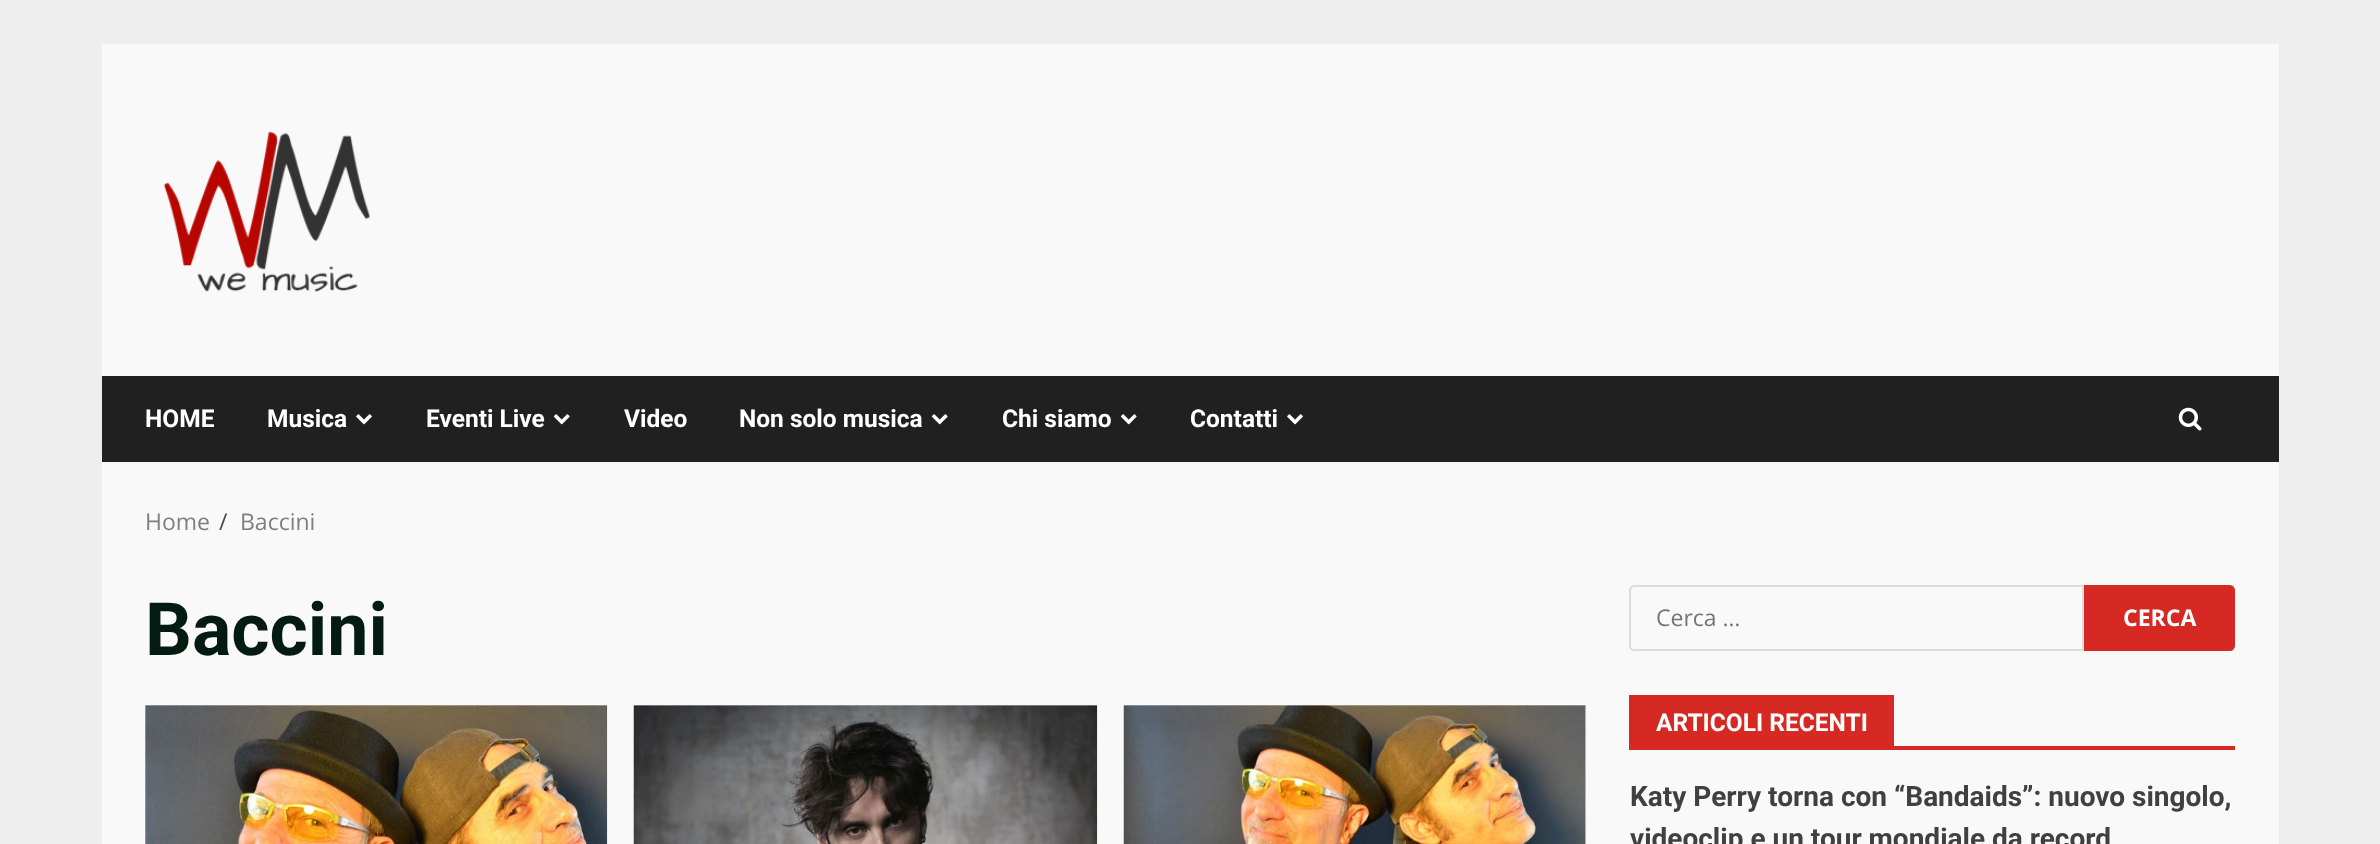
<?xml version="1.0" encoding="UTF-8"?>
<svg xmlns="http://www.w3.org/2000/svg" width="2380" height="844">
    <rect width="100%" height="100%" fill="#EEEEEE"/>
    <rect x="102" y="44" width="2177" height="800" fill="#F9F9F9"/>
    <image x="163" y="131" width="207" height="161" href="img_01.png"/>
    <rect x="102" y="376" width="2177" height="86" fill="#202020"/>
    <text x="145" y="427" font-family="Roboto" font-size="24.5" font-weight="700" fill="#FFFFFF">HOME</text>
    <text x="267" y="427" font-family="Roboto" font-size="24.5" font-weight="700" fill="#FFFFFF">Musica</text>
    <image x="356" y="414" width="16" height="11" href="img_02.png"/>
    <text x="426" y="427" font-family="Roboto" font-size="24.5" font-weight="700" fill="#FFFFFF">Eventi Live</text>
    <image x="553" y="414" width="17" height="11" href="img_03.png"/>
    <text x="624" y="427" font-family="Roboto" font-size="24.5" font-weight="700" fill="#FFFFFF">Video</text>
    <text x="739" y="427" font-family="Roboto" font-size="24.5" font-weight="700" fill="#FFFFFF">Non solo musica</text>
    <image x="931" y="414" width="17" height="11" href="img_03.png"/>
    <text x="1002" y="427" font-family="Roboto" font-size="24.5" font-weight="700" fill="#FFFFFF">Chi siamo</text>
    <image x="1120" y="414" width="17" height="11" href="img_03.png"/>
    <text x="1190" y="427" font-family="Roboto" font-size="24.5" font-weight="700" fill="#FFFFFF">Contatti</text>
    <image x="1287" y="414" width="16" height="11" href="img_02.png"/>
    <image x="2178" y="407" width="24" height="24" href="img_04.png"/>
    <text x="145" y="530" font-family="Open Sans" font-size="23" fill="#7F7F7F">Home</text>
    <text x="219" y="530" font-family="Open Sans" font-size="23" fill="#4A4A4A">/</text>
    <text x="240" y="530" font-family="Open Sans" font-size="23" fill="#7F7F7F">Baccini</text>
    <text x="145" y="655" font-family="Roboto" font-size="73.5" font-weight="700" fill="#031B11">Baccini</text>
    <rect x="145" y="705" width="462" height="139" fill="#CCCCCC"/>
    <image x="145" y="705" width="463" height="139" href="img_05.png"/>
    <rect x="634" y="705" width="463" height="1" fill="#CCCCCC"/>
    <image x="633" y="705" width="465" height="139" href="img_06.png"/>
    <rect x="1124" y="705" width="462" height="139" fill="#CCCCCC"/>
    <image x="1123" y="705" width="463" height="139" href="img_07.png"/>
    <path d="M 1634 586 H 2083 V 650 H 1634 C 1632 650 1630 648 1630 646 V 590 C 1630 588 1632 586 1634 586 Z" fill="none" stroke="#DCDCDC" stroke-width="2"/>
    <text x="1656" y="626" font-family="Open Sans" font-size="23" fill="#757575">Cerca …</text>
    <path d="M 2085 586 H 2230 C 2232 586 2234 588 2234 590 V 646 C 2234 648 2232 650 2230 650 H 2085 Z" fill="#D72924" stroke="#D72924" stroke-width="2"/>
    <text x="2123" y="626" font-family="Open Sans" font-size="23" font-weight="700" fill="#FFFFFF">CERCA</text>
    <rect x="1629" y="746" width="606" height="4" fill="#D72924"/>
    <rect x="1629" y="695" width="265" height="51" fill="#D72924"/>
    <text x="1656" y="731" font-family="Roboto" font-size="24.5" font-weight="700" fill="#FFFFFF">ARTICOLI RECENTI</text>
    <text font-family="Roboto" font-size="28" font-weight="700" fill="#404040">
        <tspan x="1630" y="806">Katy Perry torna con “Bandaids”: nuovo singolo,</tspan>
        <tspan x="1630" y="848">videoclip e un tour mondiale da record</tspan>
    </text>
</svg>
